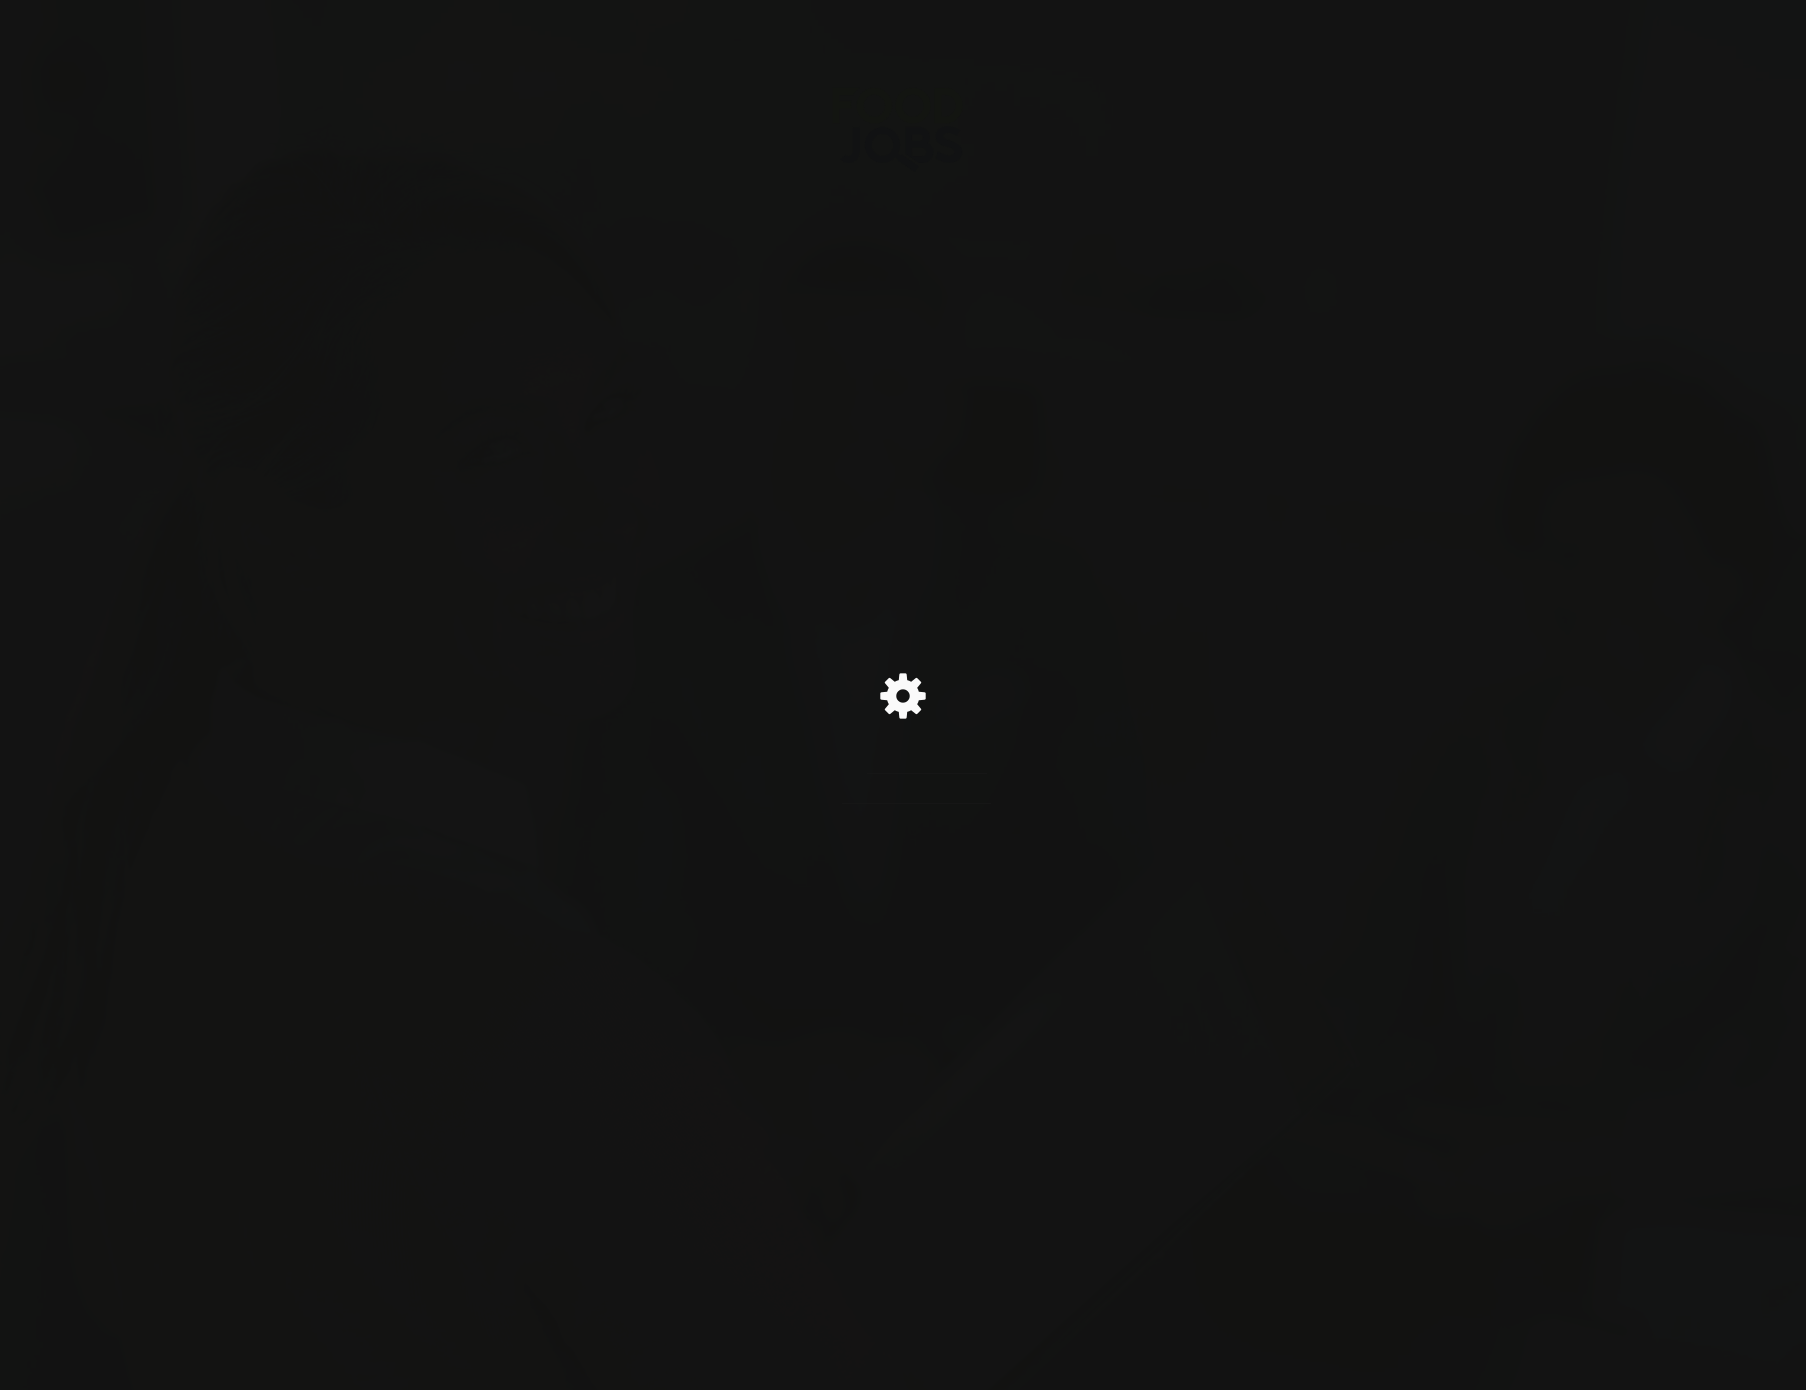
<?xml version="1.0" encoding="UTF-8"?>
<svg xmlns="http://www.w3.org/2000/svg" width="1806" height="1390">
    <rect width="100%" height="100%" fill="#FFFFFF"/>
    <image x="0" y="0" width="1806" height="1390" href="img_01.png"/>
    <image x="832" y="87" width="131" height="85" href="img_02.png"/>
    <rect x="867" y="773" width="120" height="1" fill="#161616"/>
    <rect x="842" y="803" width="149" height="1" fill="#161616"/>
    <image x="880" y="673" width="46" height="46" href="img_03.png"/>
</svg>
